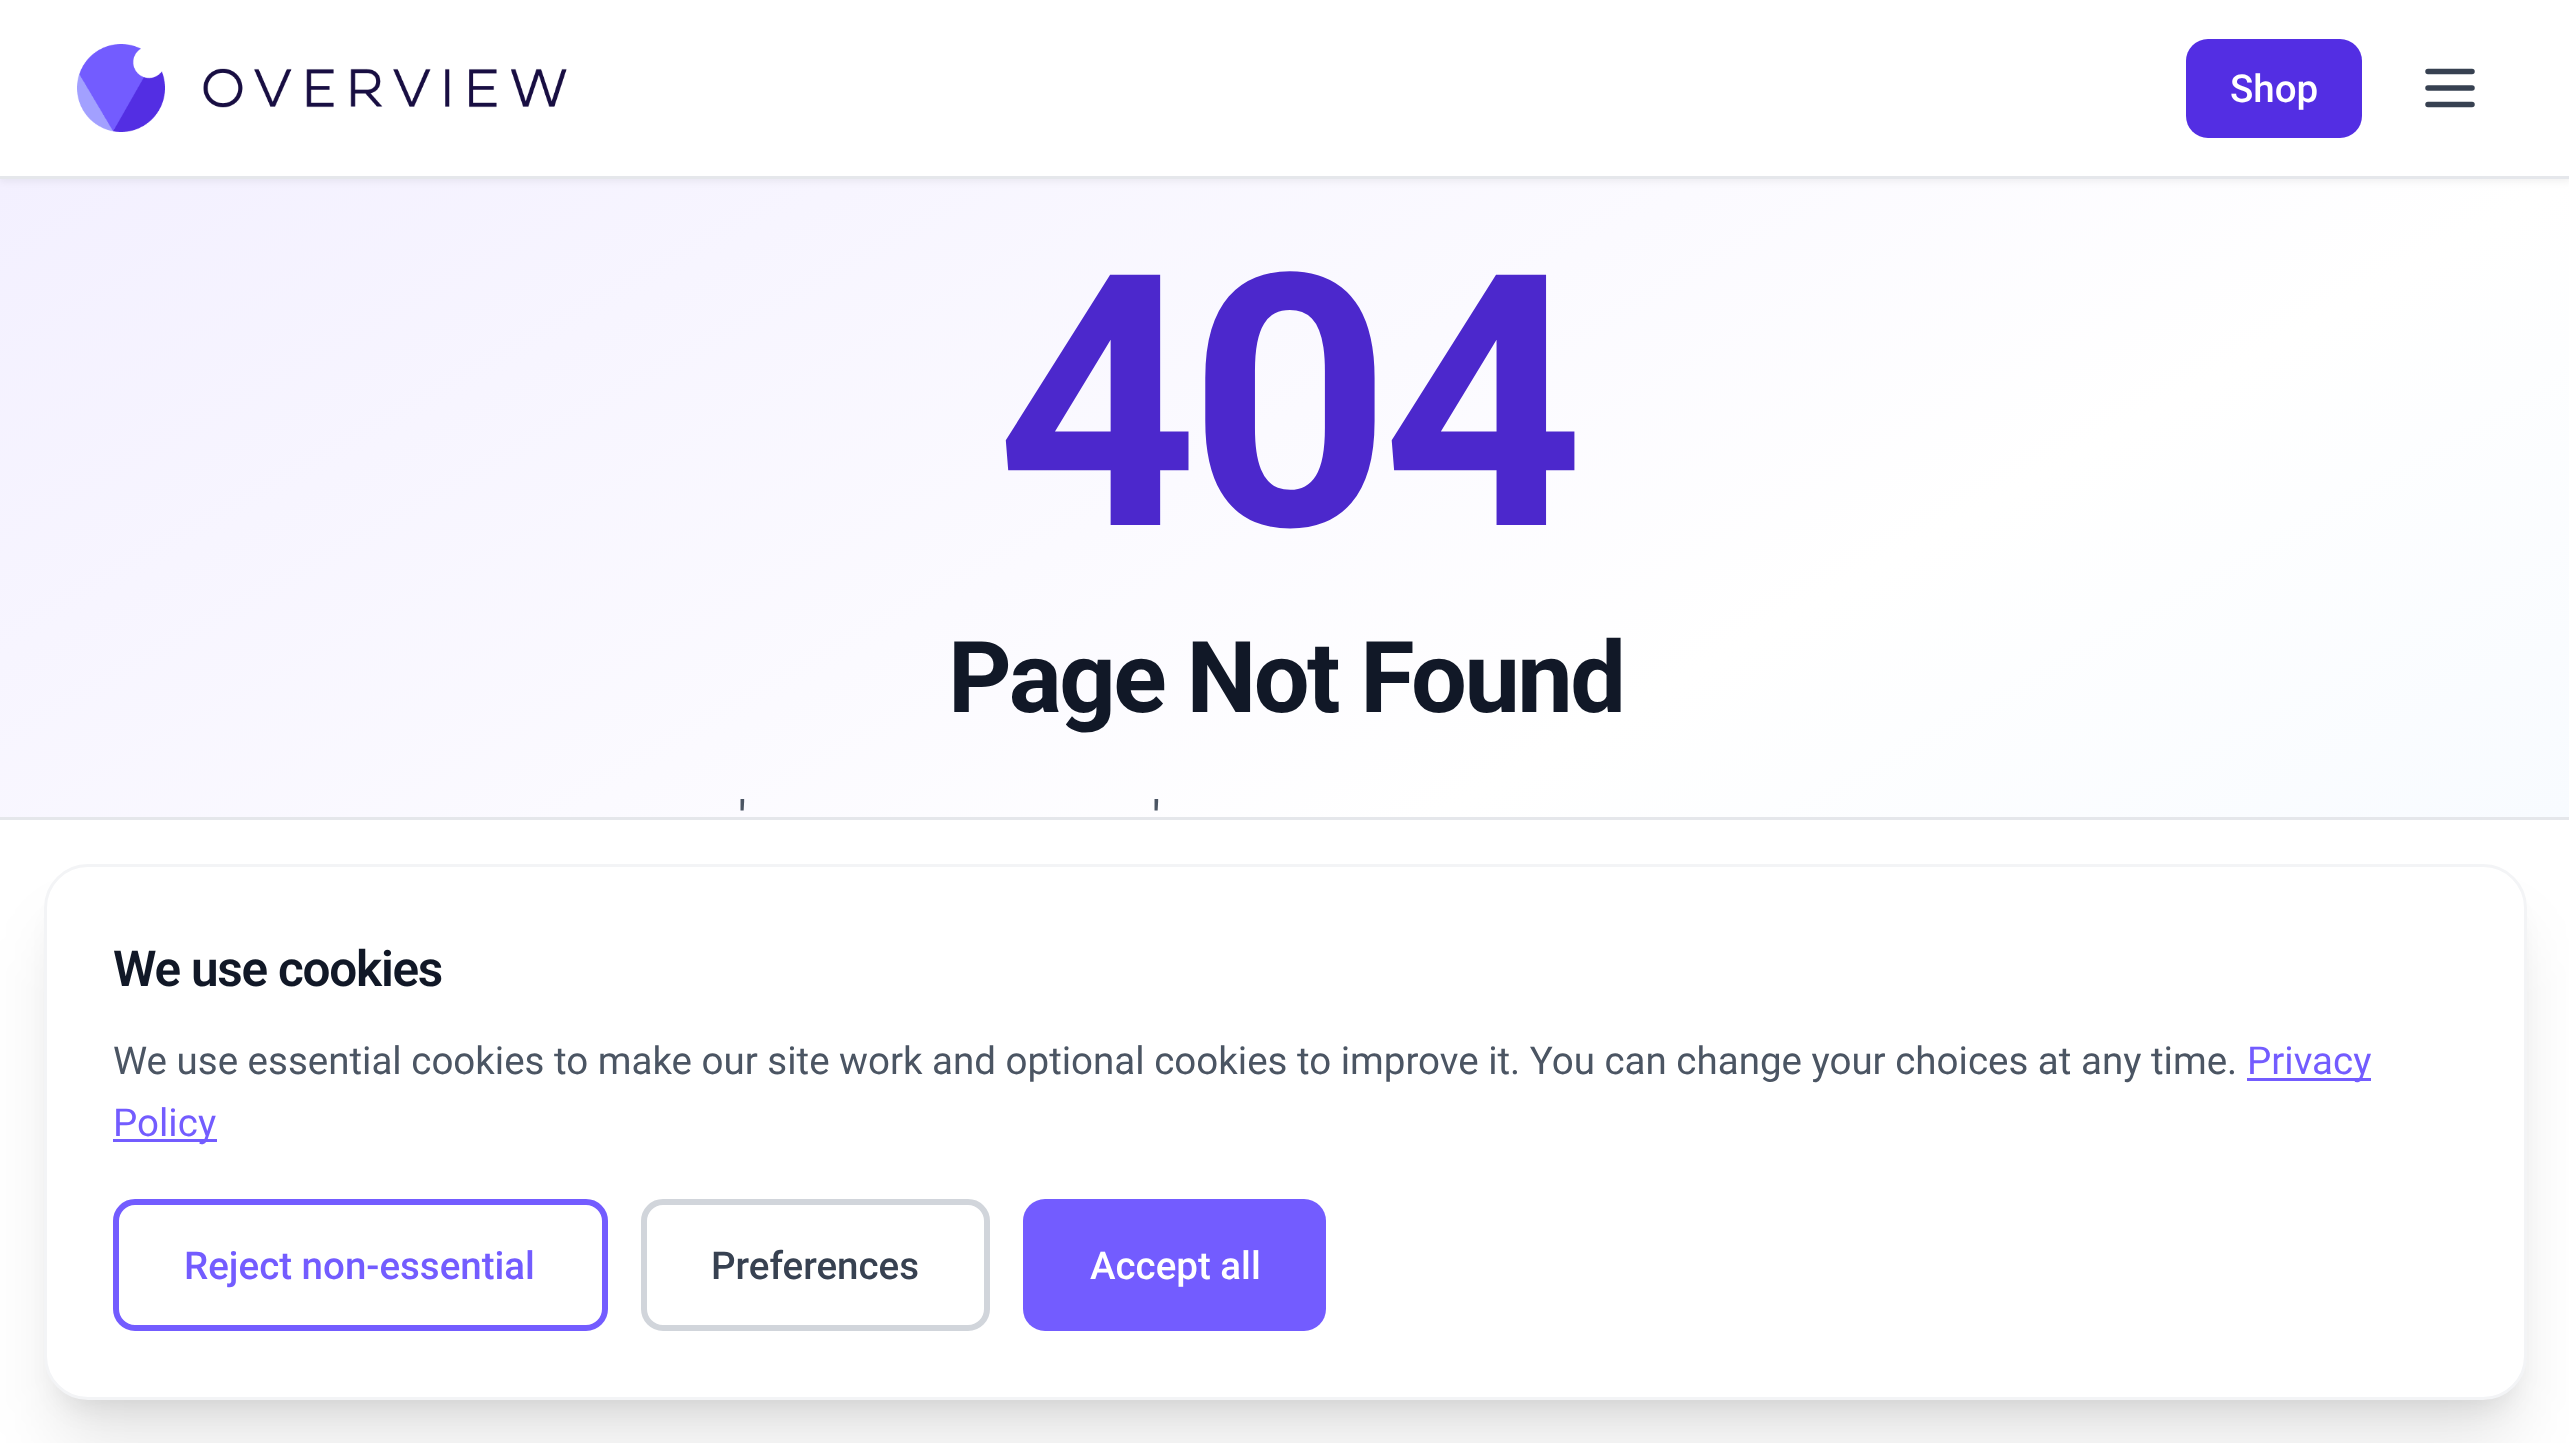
<?xml version="1.0" encoding="UTF-8"?>
<svg xmlns="http://www.w3.org/2000/svg" width="2569" height="1443">
    <defs>
        <linearGradient id="g1" gradientUnits="userSpaceOnUse" x1="669" y1="-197" x2="1902" y2="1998"><stop offset="0" stop-color="#F3F0FF"/><stop offset="0.5" stop-color="#FFFFFF"/><stop offset="1" stop-color="#EFF6FF"/></linearGradient>
        <filter id="blur1" x="-50%" y="-200%" width="200%" height="500%"><feGaussianBlur stdDeviation="3"/></filter>
        <filter id="blur2" x="-50%" y="-200%" width="200%" height="500%"><feGaussianBlur stdDeviation="14"/></filter>
        <filter id="blur3" x="-50%" y="-200%" width="200%" height="500%"><feGaussianBlur stdDeviation="34.5"/></filter>
    </defs>
    <rect width="100%" height="100%" fill="#FFFFFF"/>
    <rect x="0" y="179" width="2569" height="1264" fill="url(#g1)"/>
    <rect x="0" y="3" width="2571" height="179" fill="#000000" fill-opacity="0.05" filter="url(#blur1)"/>
    <rect x="0" y="0" width="2569" height="176" fill="#FFFFFF"/>
    <rect x="0" y="176" width="2569" height="3" fill="#E5E7EB"/>
    <image x="77" y="44" width="490" height="88" href="img_01.png"/>
    <rect x="2186" y="39" width="176" height="99" rx="22" fill="#532EE3"/>
    <text x="2230" y="102" font-family="Roboto" font-size="38.5" font-weight="500" fill="#FFFFFF">Shop</text>
    <path d="M 2428 71.5 H 2472 M 2428 88 H 2472 M 2428 104.5 H 2472" fill="none" stroke="#374151" stroke-width="5.5" stroke-linecap="round" stroke-linejoin="round"/>
    <text x="996" y="525" font-family="Roboto" font-size="352" font-weight="700" letter-spacing="-9" fill="#4C28CC">404</text>
    <text x="948" y="712" font-family="Roboto" font-size="99" font-weight="700" letter-spacing="-2.5" fill="#111827">Page Not Found</text>
    <text x="738" y="836" font-family="Roboto" font-size="49.5" fill="#4B5563">'</text>
    <text x="1152" y="836" font-family="Roboto" font-size="49.5" fill="#4B5563">'</text>
    <rect x="0" y="820" width="2569" height="623" fill="#FFFFFF" fill-opacity="0.95"/>
    <rect x="0" y="817" width="2569" height="3" fill="#E5E7EB"/>
    <rect x="61" y="902" width="2450" height="503" rx="28" fill="#000000" fill-opacity="0.1" filter="url(#blur2)"/>
    <rect x="58" y="932" width="2456" height="509" rx="30" fill="#000000" fill-opacity="0.1" filter="url(#blur3)"/>
    <rect x="45.5" y="865.5" width="2480" height="533" rx="42.5" fill="#FFFFFF" stroke="#F3F4F6" stroke-width="3"/>
    <text x="113" y="986" font-family="Roboto" font-size="49.5" font-weight="600" letter-spacing="-1.25" fill="#111827">We use cookies</text>
    <text x="113" y="1074" font-family="Roboto" font-size="38.5" fill="#4B5563">We use essential cookies to make our site work and optional cookies to improve it. You can change your choices at any time.</text>
    <rect x="2247" y="1078" width="124" height="3" fill="#735CFF"/>
    <text x="2247" y="1074" font-family="Roboto" font-size="38.5" fill="#735CFF">Privacy</text>
    <rect x="113" y="1139" width="104" height="3" fill="#735CFF"/>
    <text x="113" y="1136" font-family="Roboto" font-size="38.5" fill="#735CFF">Policy</text>
    <rect x="116" y="1202" width="489" height="126" rx="19" fill="none" stroke="#735CFF" stroke-width="6"/>
    <text x="184" y="1279" font-family="Roboto" font-size="38.5" font-weight="500" fill="#735CFF">Reject non-essential</text>
    <rect x="644" y="1202" width="343" height="126" rx="19" fill="none" stroke="#D1D5DB" stroke-width="6"/>
    <text x="711" y="1279" font-family="Roboto" font-size="38.5" font-weight="500" fill="#374151">Preferences</text>
    <rect x="1023" y="1199" width="303" height="132" rx="22" fill="#735CFF"/>
    <text x="1090" y="1279" font-family="Roboto" font-size="38.5" font-weight="500" fill="#FFFFFF">Accept all</text>
</svg>
